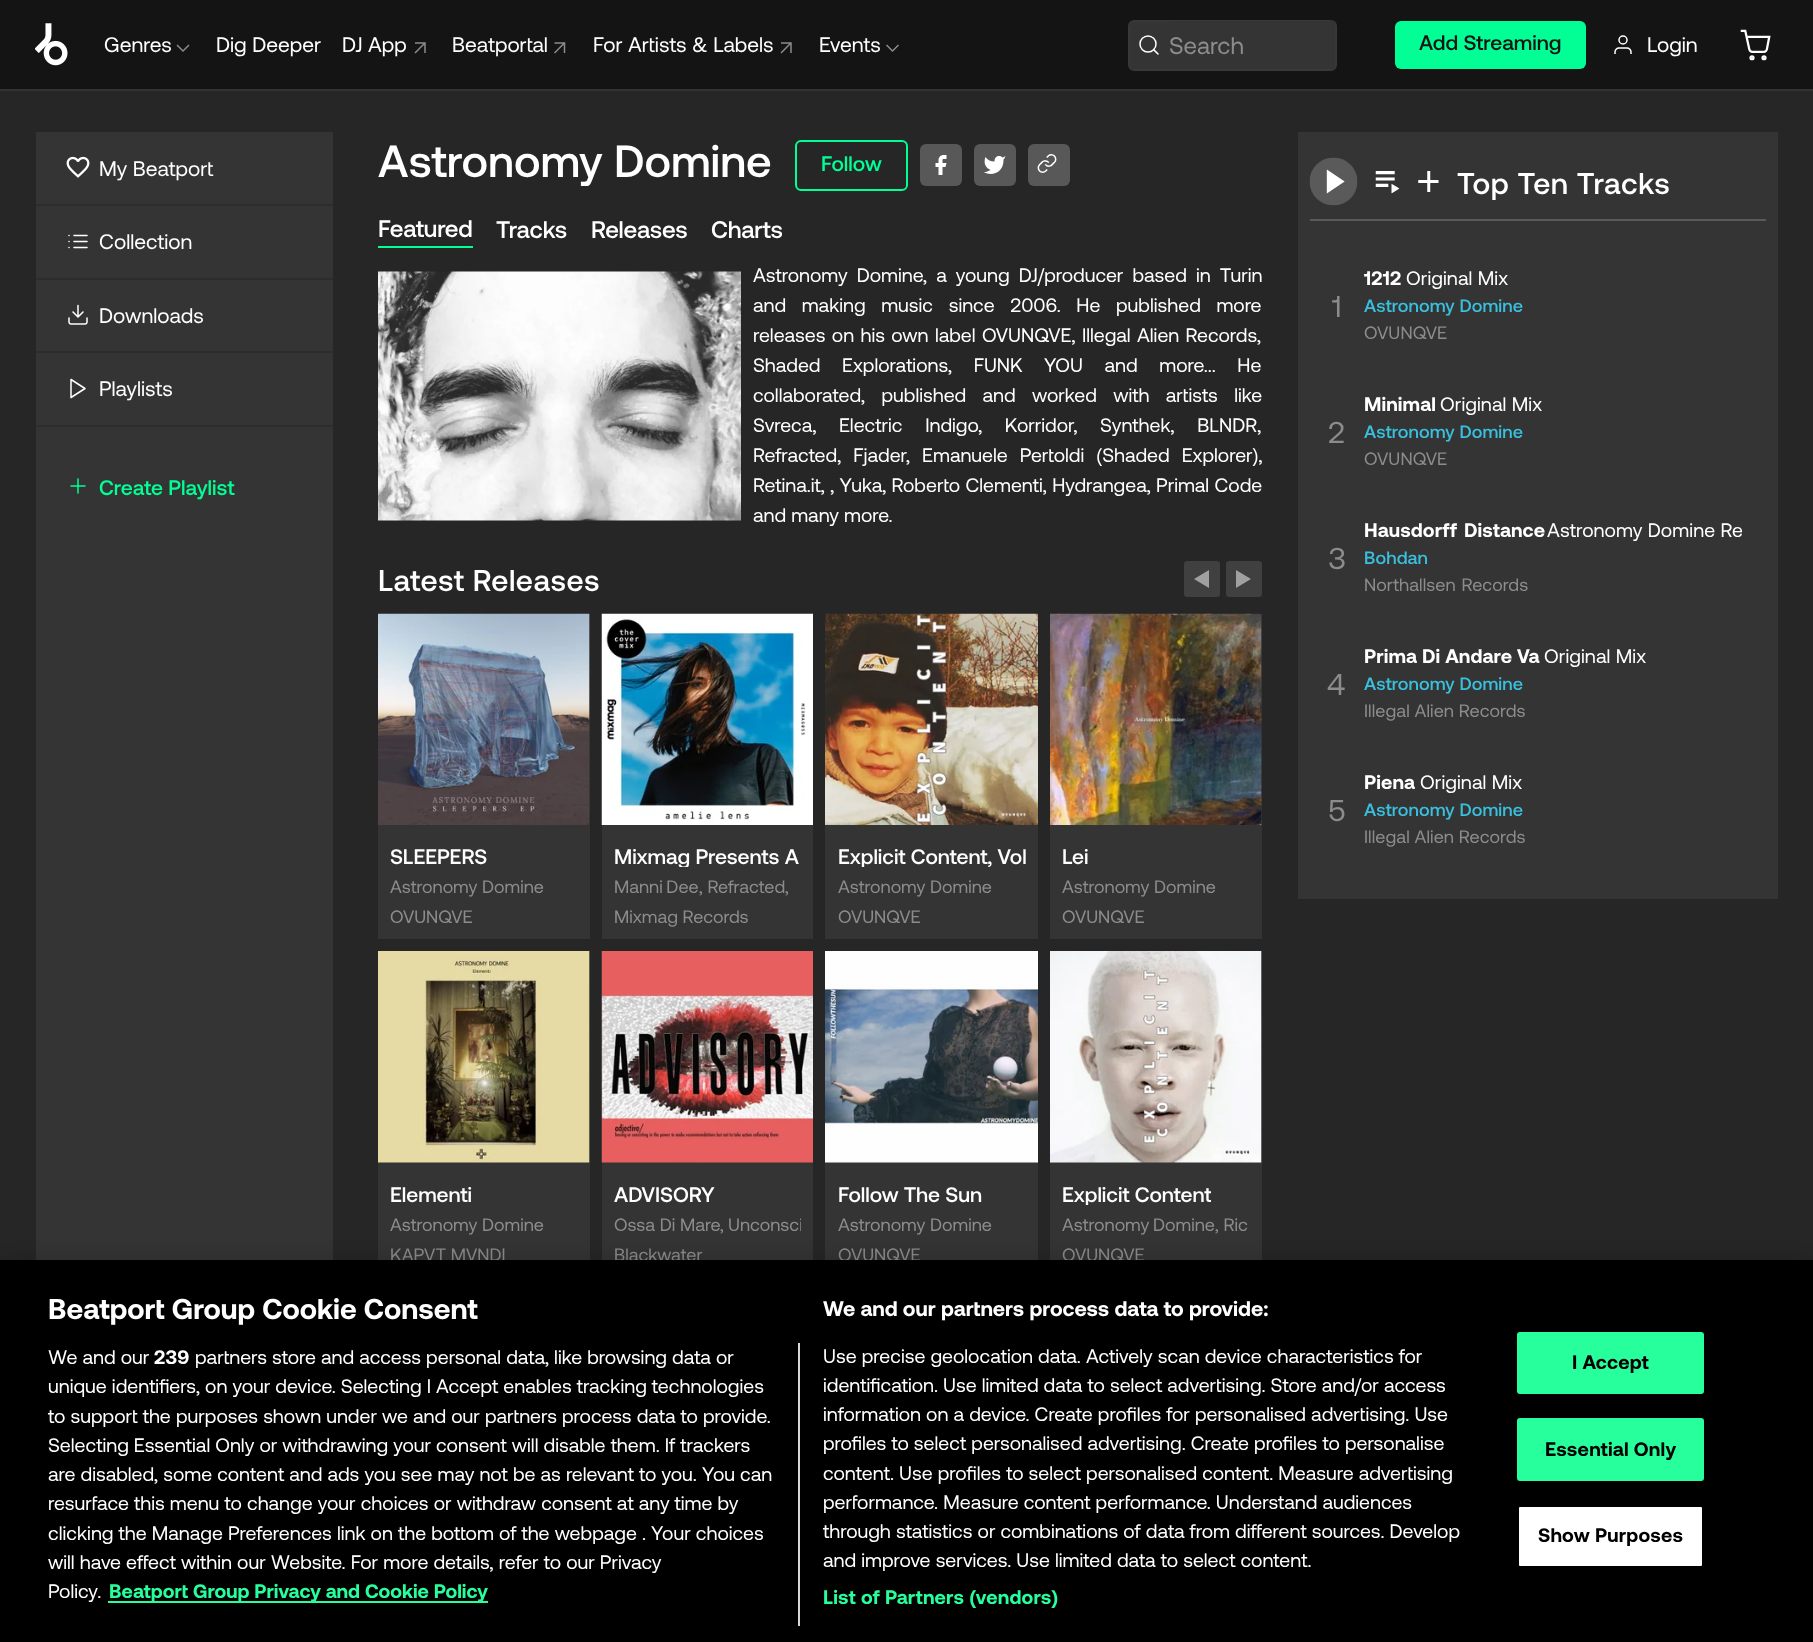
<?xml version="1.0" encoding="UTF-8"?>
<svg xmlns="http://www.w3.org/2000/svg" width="1813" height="1642">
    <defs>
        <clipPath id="clip1"><rect x="614" y="837" width="187" height="30"/></clipPath>
        <clipPath id="clip2"><rect x="837" y="837" width="189" height="30"/></clipPath>
        <clipPath id="clip3"><rect x="614" y="1211" width="187" height="24"/></clipPath>
        <clipPath id="clip4"><rect x="1062" y="1175" width="149" height="30"/></clipPath>
        <clipPath id="clip5"><rect x="1364" y="263" width="144" height="30"/></clipPath>
        <clipPath id="clip6"><rect x="1364" y="515" width="378" height="30"/></clipPath>
        <filter id="blur1" x="-50%" y="-200%" width="200%" height="500%"><feGaussianBlur stdDeviation="13.5"/></filter>
    </defs>
    <rect width="100%" height="100%" fill="#262626"/>
    <rect x="0" y="0" width="1813" height="89" fill="#141414"/>
    <rect x="0" y="89" width="1813" height="2" fill="#333333"/>
    <image x="35" y="23" width="33" height="43" href="img_01.png"/>
    <text x="104" y="52" font-family="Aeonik" font-size="21" fill="#FFFFFF">Genres</text>
    <image x="176" y="44" width="14" height="8" href="img_02.png"/>
    <text x="216" y="52" font-family="Aeonik" font-size="21" fill="#FFFFFF">Dig Deeper</text>
    <text x="342" y="52" font-family="Aeonik" font-size="21" fill="#FFFFFF">DJ App</text>
    <image x="414" y="42" width="12" height="12" href="img_03.png"/>
    <text x="452" y="52" font-family="Aeonik" font-size="21" fill="#FFFFFF">Beatportal</text>
    <image x="554" y="42" width="12" height="12" href="img_04.png"/>
    <text x="593" y="52" font-family="Aeonik" font-size="21" fill="#FFFFFF">For Artists &amp; Labels</text>
    <image x="780" y="42" width="12" height="12" href="img_03.png"/>
    <text x="819" y="52" font-family="Aeonik" font-size="21" fill="#FFFFFF">Events</text>
    <image x="886" y="44" width="13" height="8" href="img_05.png"/>
    <rect x="1129" y="21" width="207" height="49" rx="5" fill="#343434" stroke="#383838" stroke-width="2"/>
    <image x="1139" y="35" width="20" height="20" href="img_06.png"/>
    <rect x="1169" y="21" width="166" height="48" fill="#343434"/>
    <text x="1169" y="54" font-family="Aeonik" font-size="24" fill="#8C8C8C">Search</text>
    <rect x="1395" y="21" width="191" height="48" rx="6" fill="#01FF95"/>
    <text x="1419" y="50" font-family="Aeonik" font-size="21" font-weight="500" fill="#141414">Add Streaming</text>
    <image x="1614" y="35" width="18" height="19" href="img_07.png"/>
    <text x="1647" y="52" font-family="Aeonik" font-size="21" fill="#FFFFFF">Login</text>
    <image x="1740" y="29" width="31" height="32" href="img_08.png"/>
    <rect x="36" y="132" width="297" height="1128" fill="#343434"/>
    <rect x="36" y="204" width="297" height="2" fill="#2D2D2D"/>
    <image x="66" y="156" width="24" height="22" href="img_09.png"/>
    <text x="99" y="176" font-family="Aeonik" font-size="21" fill="#FFFFFF">My Beatport</text>
    <rect x="36" y="278" width="297" height="2" fill="#2D2D2D"/>
    <image x="68" y="234" width="20" height="15" href="img_10.png"/>
    <text x="99" y="249" font-family="Aeonik" font-size="21" fill="#FFFFFF">Collection</text>
    <rect x="36" y="351" width="297" height="2" fill="#2D2D2D"/>
    <image x="68" y="304" width="20" height="21" href="img_11.png"/>
    <text x="99" y="323" font-family="Aeonik" font-size="21" fill="#FFFFFF">Downloads</text>
    <rect x="36" y="425" width="297" height="2" fill="#2D2D2D"/>
    <path d="M 71 379.5 L 85 388.5 L 71 397.5 Z" fill="none" stroke="#FFFFFF" stroke-width="1.5" stroke-linecap="round" stroke-linejoin="round"/>
    <text x="99" y="396" font-family="Aeonik" font-size="21" fill="#FFFFFF">Playlists</text>
    <path d="M 78 479 V 493 M 71 486 H 85" fill="none" stroke="#01FF95" stroke-width="1.5" stroke-linecap="round" stroke-linejoin="round"/>
    <text x="99" y="495" font-family="Aeonik" font-size="21" font-weight="500" fill="#01FF95">Create Playlist</text>
    <text x="378" y="177" font-family="Aeonik" font-size="45" font-weight="500" fill="#FFFFFF">Astronomy Domine</text>
    <rect x="796" y="141" width="111" height="49" rx="5" fill="none" stroke="#01FF95" stroke-width="2"/>
    <text x="821" y="171" font-family="Aeonik" font-size="21" font-weight="500" fill="#01FF95">Follow</text>
    <rect x="920" y="144" width="42" height="42" rx="6" fill="#585858"/>
    <image x="935" y="155" width="12" height="20" href="img_12.png"/>
    <rect x="974" y="144" width="42" height="42" rx="6" fill="#585858"/>
    <image x="983" y="156" width="23" height="18" href="img_13.png"/>
    <rect x="1028" y="144" width="42" height="42" rx="6" fill="#585858"/>
    <image x="1037" y="154" width="20" height="19" href="img_14.png"/>
    <rect x="378" y="246" width="95" height="2" fill="#01FF95"/>
    <text x="378" y="237" font-family="Aeonik" font-size="24" font-weight="500" letter-spacing="-0.25" fill="#FFFFFF">Featured</text>
    <text x="496" y="238" font-family="Aeonik" font-size="24" font-weight="500" letter-spacing="-0.25" fill="#FFFFFF">Tracks</text>
    <text x="591" y="238" font-family="Aeonik" font-size="24" font-weight="500" letter-spacing="-0.25" fill="#FFFFFF">Releases</text>
    <text x="711" y="238" font-family="Aeonik" font-size="24" font-weight="500" letter-spacing="-0.25" fill="#FFFFFF">Charts</text>
    <image x="378" y="271" width="363" height="250" href="img_15.png"/>
    <text font-family="Aeonik" font-size="19.5" fill="#FFFFFF">
        <tspan x="753" y="282" word-spacing="4">Astronomy Domine, a young DJ/producer based in Turin</tspan>
        <tspan x="753" y="312" word-spacing="10.5">and making music since 2006. He published more</tspan>
        <tspan x="753" y="342" word-spacing="1.25">releases on his own label OVUNQVE, Illegal Alien Records,</tspan>
        <tspan x="753" y="372" word-spacing="16.5">Shaded Explorations, FUNK YOU and more... He</tspan>
        <tspan x="753" y="402" word-spacing="11.25">collaborated, published and worked with artists like</tspan>
        <tspan x="753" y="432" word-spacing="17.5">Svreca, Electric Indigo, Korridor, Synthek, BLNDR,</tspan>
        <tspan x="753" y="462" word-spacing="7">Refracted, Fjader, Emanuele Pertoldi (Shaded Explorer),</tspan>
        <tspan x="753" y="492" word-spacing="0.25">Retina.it, , Yuka, Roberto Clementi, Hydrangea, Primal Code</tspan>
        <tspan x="753" y="522">and many more.</tspan>
    </text>
    <text x="378" y="591" font-family="Aeonik" font-size="30" font-weight="500" letter-spacing="0.5" fill="#FFFFFF">Latest Releases</text>
    <rect x="1184" y="561" width="36" height="36" rx="3" fill="#404040"/>
    <image x="1194" y="570" width="15" height="18" href="img_16.png"/>
    <rect x="1226" y="561" width="36" height="36" rx="3" fill="#404040"/>
    <image x="1236" y="570" width="15" height="18" href="img_17.png"/>
    <rect x="378" y="614" width="212" height="325" fill="#343434"/>
    <image x="378" y="613" width="212" height="212" href="img_18.png"/>
    <text x="390" y="864" font-family="Aeonik" font-size="21" font-weight="500" letter-spacing="-0.05" fill="#FFFFFF">SLEEPERS</text>
    <text font-family="Aeonik" font-size="18" fill="#8C8C8C">
        <tspan x="390" y="893">Astronomy Domine</tspan>
        <tspan x="390" y="923">OVUNQVE</tspan>
    </text>
    <rect x="602" y="825" width="211" height="114" fill="#343434"/>
    <image x="601" y="613" width="212" height="212" href="img_19.png"/>
    <g clip-path="url(#clip1)">
        <text x="614" y="864" font-family="Aeonik" font-size="21" font-weight="500" letter-spacing="-0.05" fill="#FFFFFF">Mixmag Presents A</text>
    </g>
    <text x="614" y="893" word-spacing="-1" font-family="Aeonik" font-size="18" fill="#8C8C8C">Manni Dee</text>
    <text x="699" y="893" font-family="Aeonik" font-size="18" fill="#8C8C8C">, Refracted,</text>
    <text x="614" y="923" font-family="Aeonik" font-size="18" fill="#8C8C8C">Mixmag Records</text>
    <rect x="825" y="825" width="213" height="114" fill="#343434"/>
    <image x="825" y="613" width="213" height="212" href="img_20.png"/>
    <g clip-path="url(#clip2)">
        <text x="838" y="864" font-family="Aeonik" font-size="21" font-weight="500" letter-spacing="-0.05" fill="#FFFFFF">Explicit Content, Vol</text>
    </g>
    <text font-family="Aeonik" font-size="18" fill="#8C8C8C">
        <tspan x="838" y="893">Astronomy Domine</tspan>
        <tspan x="838" y="923">OVUNQVE</tspan>
    </text>
    <rect x="1050" y="614" width="212" height="325" fill="#343434"/>
    <image x="1050" y="613" width="212" height="212" href="img_21.png"/>
    <text x="1062" y="864" font-family="Aeonik" font-size="21" font-weight="500" letter-spacing="-0.05" fill="#FFFFFF">Lei</text>
    <text font-family="Aeonik" font-size="18" fill="#8C8C8C">
        <tspan x="1062" y="893">Astronomy Domine</tspan>
        <tspan x="1062" y="923">OVUNQVE</tspan>
    </text>
    <rect x="378" y="951" width="212" height="309" fill="#343434"/>
    <image x="378" y="951" width="212" height="212" href="img_22.png"/>
    <text x="390" y="1202" font-family="Aeonik" font-size="21" font-weight="500" letter-spacing="-0.05" fill="#FFFFFF">Elementi</text>
    <text font-family="Aeonik" font-size="18" fill="#8C8C8C">
        <tspan x="390" y="1231">Astronomy Domine</tspan>
        <tspan x="390" y="1261">KAPVT MVNDI</tspan>
    </text>
    <rect x="602" y="1162" width="211" height="98" fill="#343434"/>
    <image x="601" y="951" width="212" height="212" href="img_23.png"/>
    <text x="614" y="1202" font-family="Aeonik" font-size="21" font-weight="500" letter-spacing="-0.05" fill="#FFFFFF">ADVISORY</text>
    <text x="614" y="1231" font-family="Aeonik" font-size="18" fill="#8C8C8C">Ossa Di Mare</text>
    <text x="720" y="1231" font-family="Aeonik" font-size="18" fill="#8C8C8C">,</text>
    <g clip-path="url(#clip3)">
        <text x="728" y="1231" font-family="Aeonik" font-size="18" fill="#8C8C8C">Unconsci</text>
    </g>
    <text x="614" y="1261" font-family="Aeonik" font-size="18" fill="#8C8C8C">Blackwater</text>
    <rect x="825" y="1162" width="213" height="98" fill="#343434"/>
    <image x="825" y="951" width="213" height="212" href="img_24.png"/>
    <text x="838" y="1202" font-family="Aeonik" font-size="21" font-weight="500" letter-spacing="-0.05" fill="#FFFFFF">Follow The Sun</text>
    <text font-family="Aeonik" font-size="18" fill="#8C8C8C">
        <tspan x="838" y="1231">Astronomy Domine</tspan>
        <tspan x="838" y="1261">OVUNQVE</tspan>
    </text>
    <rect x="1050" y="951" width="212" height="309" fill="#343434"/>
    <image x="1050" y="951" width="212" height="212" href="img_25.png"/>
    <g clip-path="url(#clip4)">
        <text x="1062" y="1202" font-family="Aeonik" font-size="21" font-weight="500" letter-spacing="-0.05" fill="#FFFFFF">Explicit Content</text>
    </g>
    <text x="1062" y="1231" word-spacing="-1" font-family="Aeonik" font-size="18" fill="#8C8C8C">Astronomy Domine</text>
    <text x="1215" y="1231" font-family="Aeonik" font-size="18" fill="#8C8C8C">, Ric</text>
    <text x="1062" y="1261" font-family="Aeonik" font-size="18" fill="#8C8C8C">OVUNQVE</text>
    <rect x="1298" y="132" width="480" height="767" fill="#343434"/>
    <image x="1309" y="157" width="49" height="49" href="img_26.png"/>
    <image x="1375" y="171" width="25" height="23" href="img_27.png"/>
    <image x="1418" y="171" width="21" height="21" href="img_28.png"/>
    <text x="1457" y="194" font-family="Aeonik" font-size="30" font-weight="500" letter-spacing="0.5" fill="#FFFFFF">Top Ten Tracks</text>
    <rect x="1310" y="219" width="456" height="2" fill="#5A5A5A"/>
    <text x="1332" y="317" font-family="Aeonik" font-size="30" fill="#8C8C8C">1</text>
    <g clip-path="url(#clip5)">
        <text x="1364" y="285" font-family="Aeonik" font-size="19.5" font-weight="700" letter-spacing="0.1" fill="#FFFFFF">1212</text>
    </g>
    <text x="1406" y="285" font-family="Aeonik" font-size="19.5" letter-spacing="0.1" fill="#FFFFFF">Original Mix</text>
    <text x="1364" y="312" font-family="Aeonik" font-size="18" font-weight="500" letter-spacing="0.1" fill="#39C0DE">Astronomy Domine</text>
    <text x="1364" y="339" font-family="Aeonik" font-size="18" letter-spacing="0.1" fill="#8C8C8C">OVUNQVE</text>
    <text x="1328" y="443" font-family="Aeonik" font-size="30" fill="#8C8C8C">2</text>
    <text x="1364" y="411" font-family="Aeonik" font-size="19.5" font-weight="700" letter-spacing="0.1" fill="#FFFFFF">Minimal</text>
    <text x="1440" y="411" font-family="Aeonik" font-size="19.5" letter-spacing="0.1" fill="#FFFFFF">Original Mix</text>
    <text x="1364" y="438" font-family="Aeonik" font-size="18" font-weight="500" letter-spacing="0.1" fill="#39C0DE">Astronomy Domine</text>
    <text x="1364" y="465" font-family="Aeonik" font-size="18" letter-spacing="0.1" fill="#8C8C8C">OVUNQVE</text>
    <text x="1328" y="569" font-family="Aeonik" font-size="30" fill="#8C8C8C">3</text>
    <text x="1364" y="537" word-spacing="2" font-family="Aeonik" font-size="19.5" font-weight="700" letter-spacing="0.1" fill="#FFFFFF">Hausdorff Distance</text>
    <g clip-path="url(#clip6)">
        <text x="1547" y="537" font-family="Aeonik" font-size="19.5" letter-spacing="0.1" fill="#FFFFFF">Astronomy Domine Re</text>
    </g>
    <text x="1364" y="564" font-family="Aeonik" font-size="18" font-weight="500" letter-spacing="0.1" fill="#39C0DE">Bohdan</text>
    <text x="1364" y="591" word-spacing="1" font-family="Aeonik" font-size="18" letter-spacing="0.1" fill="#8C8C8C">Northallsen Records</text>
    <text x="1327" y="695" font-family="Aeonik" font-size="30" fill="#8C8C8C">4</text>
    <text x="1364" y="663" font-family="Aeonik" font-size="19.5" font-weight="700" letter-spacing="0.1" fill="#FFFFFF">Prima Di Andare Va</text>
    <text x="1544" y="663" font-family="Aeonik" font-size="19.5" letter-spacing="0.1" fill="#FFFFFF">Original Mix</text>
    <text x="1364" y="690" font-family="Aeonik" font-size="18" font-weight="500" letter-spacing="0.1" fill="#39C0DE">Astronomy Domine</text>
    <text x="1364" y="717" font-family="Aeonik" font-size="18" letter-spacing="0.1" fill="#8C8C8C">Illegal Alien Records</text>
    <text x="1328" y="821" font-family="Aeonik" font-size="30" fill="#8C8C8C">5</text>
    <text x="1364" y="789" font-family="Aeonik" font-size="19.5" font-weight="700" letter-spacing="0.1" fill="#FFFFFF">Piena</text>
    <text x="1420" y="789" font-family="Aeonik" font-size="19.5" letter-spacing="0.1" fill="#FFFFFF">Original Mix</text>
    <text x="1364" y="816" font-family="Aeonik" font-size="18" font-weight="500" letter-spacing="0.1" fill="#39C0DE">Astronomy Domine</text>
    <text x="1364" y="843" font-family="Aeonik" font-size="18" letter-spacing="0.1" fill="#8C8C8C">Illegal Alien Records</text>
    <rect x="0" y="1260" width="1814" height="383" fill="#000000" fill-opacity="0.2" filter="url(#blur1)"/>
    <rect x="0" y="1260" width="1813" height="382" fill="#000000"/>
    <text x="48" y="1319" font-family="Aeonik" font-size="28.75" font-weight="700" fill="#FFFFFF">Beatport Group Cookie Consent</text>
    <text x="823" y="1316" font-family="Aeonik" font-size="21.1" font-weight="700" fill="#FFFFFF">We and our partners process data to provide:</text>
    <text font-family="Aeonik" font-size="19.5" fill="#FFFFFF">
        <tspan x="823" y="1363">Use precise geolocation data. Actively scan device characteristics for</tspan>
        <tspan x="823" y="1392">identification. Use limited data to select advertising. Store and/or access</tspan>
        <tspan x="823" y="1421">information on a device. Create profiles for personalised advertising. Use</tspan>
        <tspan x="823" y="1450">profiles to select personalised advertising. Create profiles to personalise</tspan>
        <tspan x="823" y="1480">content. Use profiles to select personalised content. Measure advertising</tspan>
        <tspan x="823" y="1509">performance. Measure content performance. Understand audiences</tspan>
        <tspan x="823" y="1538">through statistics or combinations of data from different sources. Develop</tspan>
        <tspan x="823" y="1567">and improve services. Use limited data to select content.</tspan>
    </text>
    <text x="823" y="1604" font-family="Aeonik" font-size="19.5" font-weight="700" letter-spacing="0.2" fill="#27FF9C">List of Partners (vendors)</text>
    <rect x="798" y="1343" width="2" height="283" fill="#D8D8D8"/>
    <text x="48" y="1364" font-family="Aeonik" font-size="19.5" fill="#FFFFFF">We and our</text>
    <text x="154" y="1364" font-family="Aeonik" font-size="19.5" font-weight="700" fill="#FFFFFF">239</text>
    <text x="195" y="1364" font-family="Aeonik" font-size="19.5" fill="#FFFFFF">partners store and access personal data, like browsing data or</text>
    <text font-family="Aeonik" font-size="19.5" fill="#FFFFFF">
        <tspan x="48" y="1393">unique identifiers, on your device. Selecting I Accept enables tracking technologies</tspan>
        <tspan x="48" y="1423">to support the purposes shown under we and our partners process data to provide.</tspan>
        <tspan x="48" y="1452">Selecting Essential Only or withdrawing your consent will disable them. If trackers</tspan>
        <tspan x="48" y="1481">are disabled, some content and ads you see may not be as relevant to you. You can</tspan>
        <tspan x="48" y="1510">resurface this menu to change your choices or withdraw consent at any time by</tspan>
        <tspan x="48" y="1540">clicking the Manage Preferences link on the bottom of the webpage . Your choices</tspan>
        <tspan x="48" y="1569">will have effect within our Website. For more details, refer to our Privacy</tspan>
        <tspan x="48" y="1598">Policy.</tspan>
    </text>
    <rect x="108" y="1601" width="380" height="2" fill="#27FF9C"/>
    <text x="109" y="1598" font-family="Aeonik" font-size="19.5" font-weight="700" fill="#27FF9C">Beatport Group Privacy and Cookie Policy</text>
    <rect x="1518" y="1333" width="185" height="60" rx="2" fill="#27FF9C" stroke="#27FF9C" stroke-width="2"/>
    <text x="1572" y="1369" font-family="Aeonik" font-size="19.5" font-weight="700" letter-spacing="0.2" fill="#000000">I Accept</text>
    <rect x="1518" y="1419" width="185" height="61" rx="2" fill="#27FF9C" stroke="#27FF9C" stroke-width="2"/>
    <text x="1545" y="1456" font-family="Aeonik" font-size="19.5" font-weight="700" letter-spacing="0.2" fill="#000000">Essential Only</text>
    <rect x="1518" y="1506" width="185" height="61" rx="2" fill="#FFFFFF" stroke="#000000" stroke-width="2"/>
    <text x="1538" y="1542" font-family="Aeonik" font-size="19.5" font-weight="700" letter-spacing="0.2" fill="#000000">Show Purposes</text>
</svg>
